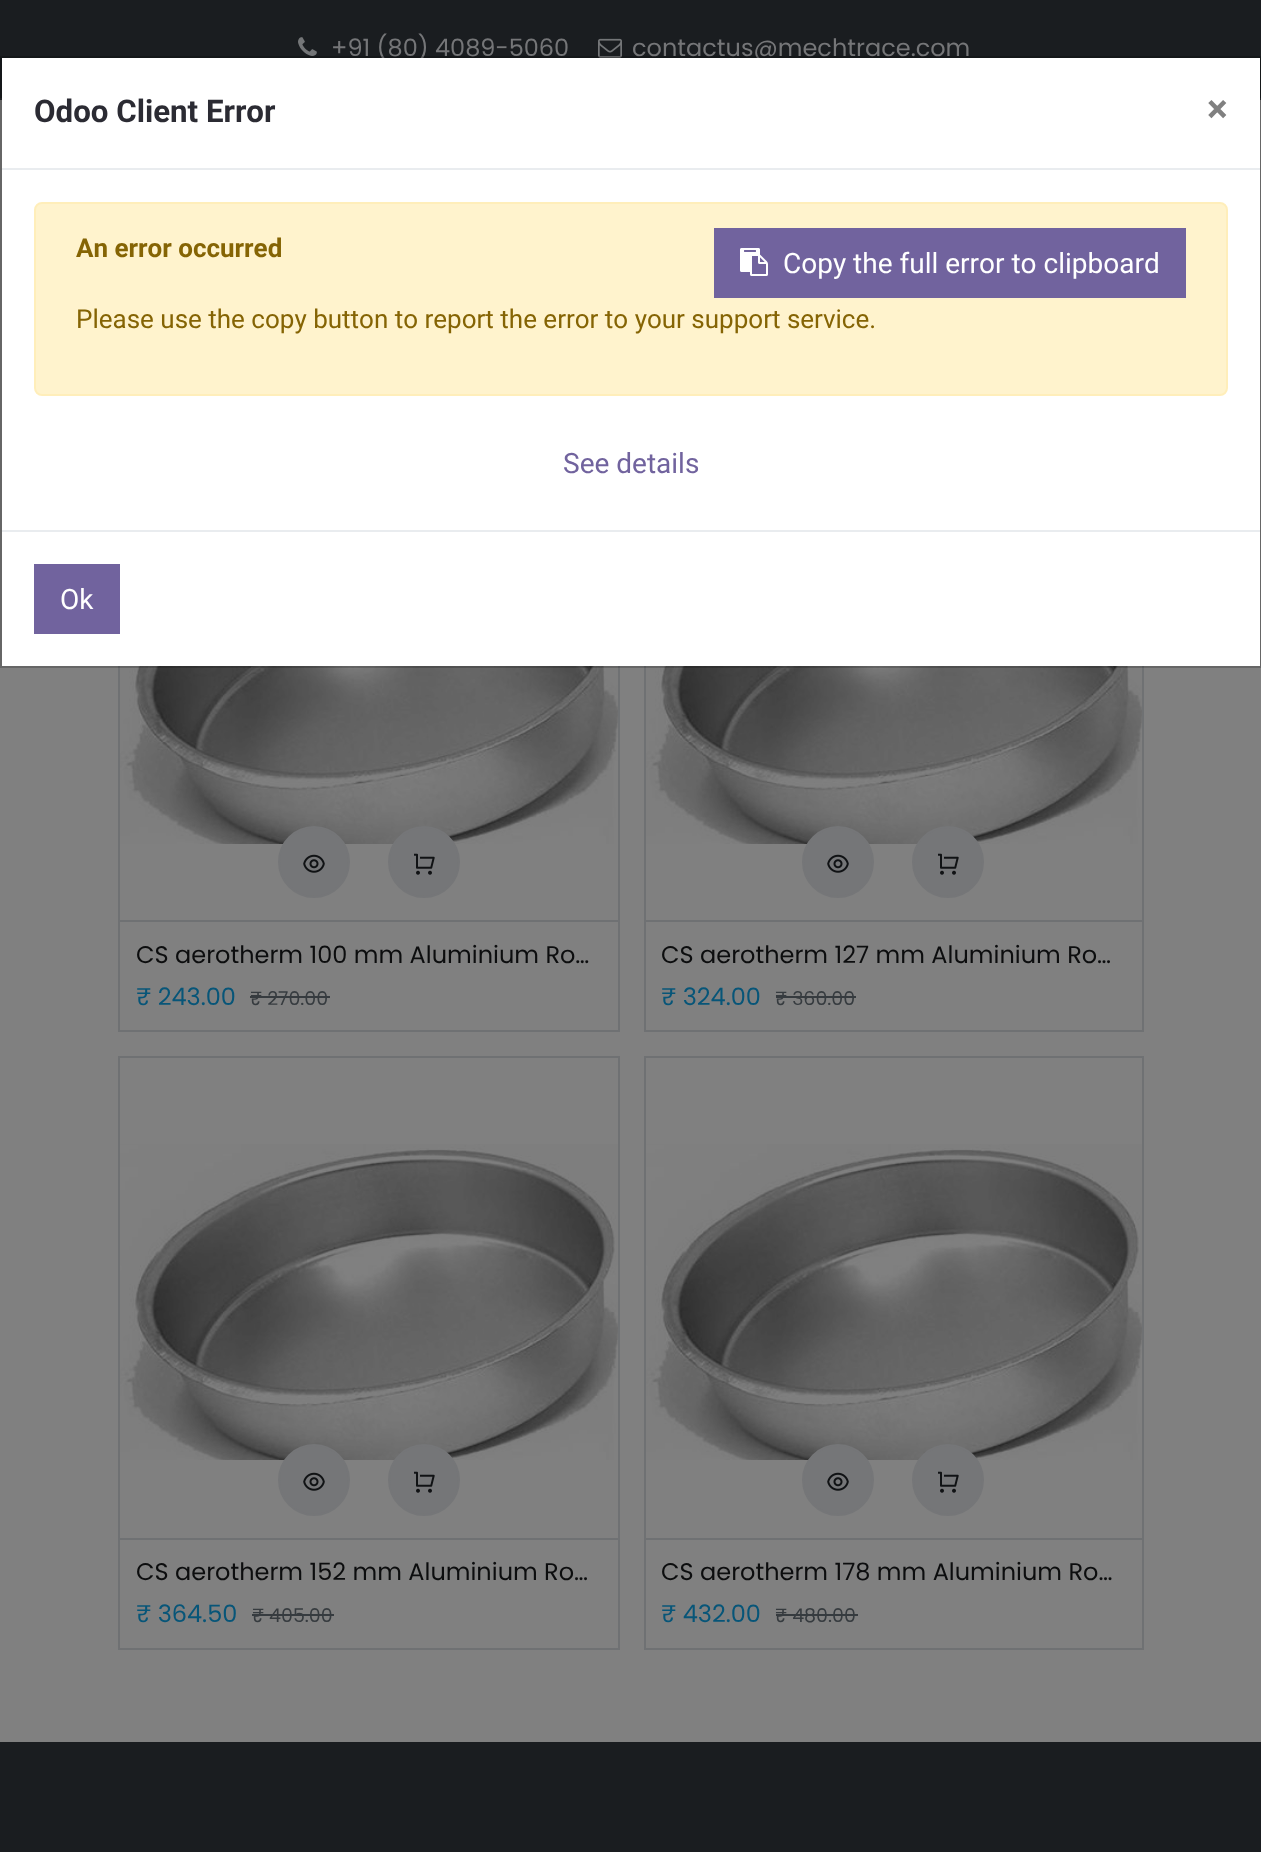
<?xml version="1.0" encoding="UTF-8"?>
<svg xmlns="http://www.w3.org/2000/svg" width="1261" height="1852">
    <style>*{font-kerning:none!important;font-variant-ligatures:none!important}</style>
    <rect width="100%" height="100%" fill="#808080"/>
    <rect x="0" y="0" width="1261" height="98" fill="#1A1D20"/>
    <rect x="0" y="98" width="1261" height="2" fill="#26292C"/>
    <image x="298" y="37" width="19" height="19" href="img_01.png"/>
    <text x="331" y="56" font-family="Poppins" font-size="24" fill="#757678">+91 (80) 4089-5060</text>
    <image x="598" y="38" width="24" height="20" href="img_02.png"/>
    <text x="632" y="56" font-family="Poppins" font-size="24" fill="#757678">contactus@mechtrace.com </text>
    <rect x="119" y="439" width="500" height="592" fill="none" stroke="#6F7173" stroke-width="2"/>
    <image x="120" y="666" width="498" height="178" href="img_03.png"/>
    <rect x="120" y="920" width="498" height="2" fill="#6F7173"/>
    <circle cx="314" cy="862" r="35" fill="#757678" stroke="#757678" stroke-width="2"/>
    <image x="303" y="854" width="22" height="19" href="img_04.png"/>
    <circle cx="424" cy="862" r="35" fill="#757678" stroke="#757678" stroke-width="2"/>
    <image x="414" y="853" width="21" height="22" href="img_05.png"/>
    <text x="136" y="963" font-family="Poppins" font-size="24" fill="#0C0D0E">CS aerotherm 100 mm Aluminium Ro…</text>
    <text x="136" y="1005" font-family="Poppins" font-size="24" fill="#075578">₹ 243.00</text>
    <text x="250" y="1005" font-family="Poppins" font-size="19" fill="#363B3F">₹ 270.00</text>
    <rect x="250" y="996" width="80" height="2" fill="#363B3F"/>
    <rect x="645" y="439" width="498" height="592" fill="none" stroke="#6F7173" stroke-width="2"/>
    <image x="646" y="666" width="496" height="178" href="img_06.png"/>
    <rect x="646" y="920" width="496" height="2" fill="#6F7173"/>
    <circle cx="838" cy="862" r="35" fill="#757678" stroke="#757678" stroke-width="2"/>
    <image x="827" y="854" width="22" height="19" href="img_04.png"/>
    <circle cx="948" cy="862" r="35" fill="#757678" stroke="#757678" stroke-width="2"/>
    <image x="938" y="853" width="21" height="22" href="img_05.png"/>
    <text x="661" y="963" font-family="Poppins" font-size="24" fill="#0C0D0E">CS aerotherm 127 mm Aluminium Ro…</text>
    <text x="661" y="1005" font-family="Poppins" font-size="24" fill="#075578">₹ 324.00</text>
    <text x="775" y="1005" font-family="Poppins" font-size="19" fill="#363B3F">₹ 360.00</text>
    <rect x="776" y="996" width="80" height="2" fill="#363B3F"/>
    <rect x="119" y="1057" width="500" height="592" fill="none" stroke="#6F7173" stroke-width="2"/>
    <image x="120" y="1144" width="498" height="316" href="img_07.png"/>
    <rect x="120" y="1538" width="498" height="2" fill="#6F7173"/>
    <circle cx="314" cy="1480" r="35" fill="#757678" stroke="#757678" stroke-width="2"/>
    <image x="303" y="1472" width="22" height="19" href="img_04.png"/>
    <circle cx="424" cy="1480" r="35" fill="#757678" stroke="#757678" stroke-width="2"/>
    <image x="414" y="1471" width="21" height="22" href="img_05.png"/>
    <text x="136" y="1580" font-family="Poppins" font-size="24" fill="#0C0D0E">CS aerotherm 152 mm Aluminium Ro…</text>
    <text x="136" y="1622" font-family="Poppins" font-size="24" fill="#075578">₹ 364.50</text>
    <text x="252" y="1622" font-family="Poppins" font-size="19" fill="#363B3F">₹</text>
    <rect x="252" y="1614" width="18" height="2" fill="#363B3F"/>
    <text x="269" y="1622" font-family="Poppins" font-size="19" fill="#363B3F">405.00</text>
    <rect x="270" y="1614" width="64" height="2" fill="#363B3F"/>
    <rect x="645" y="1057" width="498" height="592" fill="none" stroke="#6F7173" stroke-width="2"/>
    <image x="646" y="1144" width="496" height="316" href="img_08.png"/>
    <rect x="646" y="1538" width="496" height="2" fill="#6F7173"/>
    <circle cx="838" cy="1480" r="35" fill="#757678" stroke="#757678" stroke-width="2"/>
    <image x="827" y="1472" width="22" height="19" href="img_04.png"/>
    <circle cx="948" cy="1480" r="35" fill="#757678" stroke="#757678" stroke-width="2"/>
    <image x="938" y="1471" width="21" height="22" href="img_05.png"/>
    <text x="661" y="1580" font-family="Poppins" font-size="24" fill="#0C0D0E">CS aerotherm 178 mm Aluminium Ro…</text>
    <text x="661" y="1622" font-family="Poppins" font-size="24" fill="#075578">₹ 432.00</text>
    <text x="775" y="1622" font-family="Poppins" font-size="19" fill="#363B3F">₹ 480.00</text>
    <rect x="776" y="1614" width="82" height="2" fill="#363B3F"/>
    <rect x="0" y="1742" width="1261" height="110" fill="#1A1D20"/>
    <rect x="2" y="58" width="1258" height="608" fill="#FFFFFF"/>
    <rect x="1" y="57" width="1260" height="610" fill="none" stroke="#000000" stroke-opacity="0.2" stroke-width="2"/>
    <rect x="2" y="168" width="1258" height="2" fill="#E9ECEF"/>
    <text x="34" y="122" font-family="Roboto" font-size="31.25" font-weight="700" fill="#2B2B33">Odoo Client Error</text>
    <text x="1207" y="122" font-family="Roboto" font-size="39" font-weight="700" fill="#808080">×</text>
    <rect x="35" y="203" width="1192" height="192" rx="7" fill="#FFF3CD" stroke="#FFEEBA" stroke-width="2"/>
    <text x="76" y="257" font-family="Roboto" font-size="26" font-weight="700" fill="#856404">An error occurred</text>
    <rect x="714" y="228" width="472" height="70" fill="#71639E"/>
    <image x="740" y="248" width="28" height="28" href="img_09.png"/>
    <text x="783" y="273" font-family="Roboto" font-size="28" fill="#FFFFFF">Copy the full error to clipboard</text>
    <text x="76" y="328" font-family="Roboto" font-size="26" fill="#856404">Please use the copy button to report the error to your support service.</text>
    <text x="563" y="473" font-family="Roboto" font-size="28" fill="#71639E">See details</text>
    <rect x="2" y="530" width="1258" height="2" fill="#E9ECEF"/>
    <rect x="34" y="564" width="86" height="70" fill="#71639E"/>
    <text x="60" y="609" font-family="Roboto" font-size="28" fill="#FFFFFF">Ok</text>
</svg>
